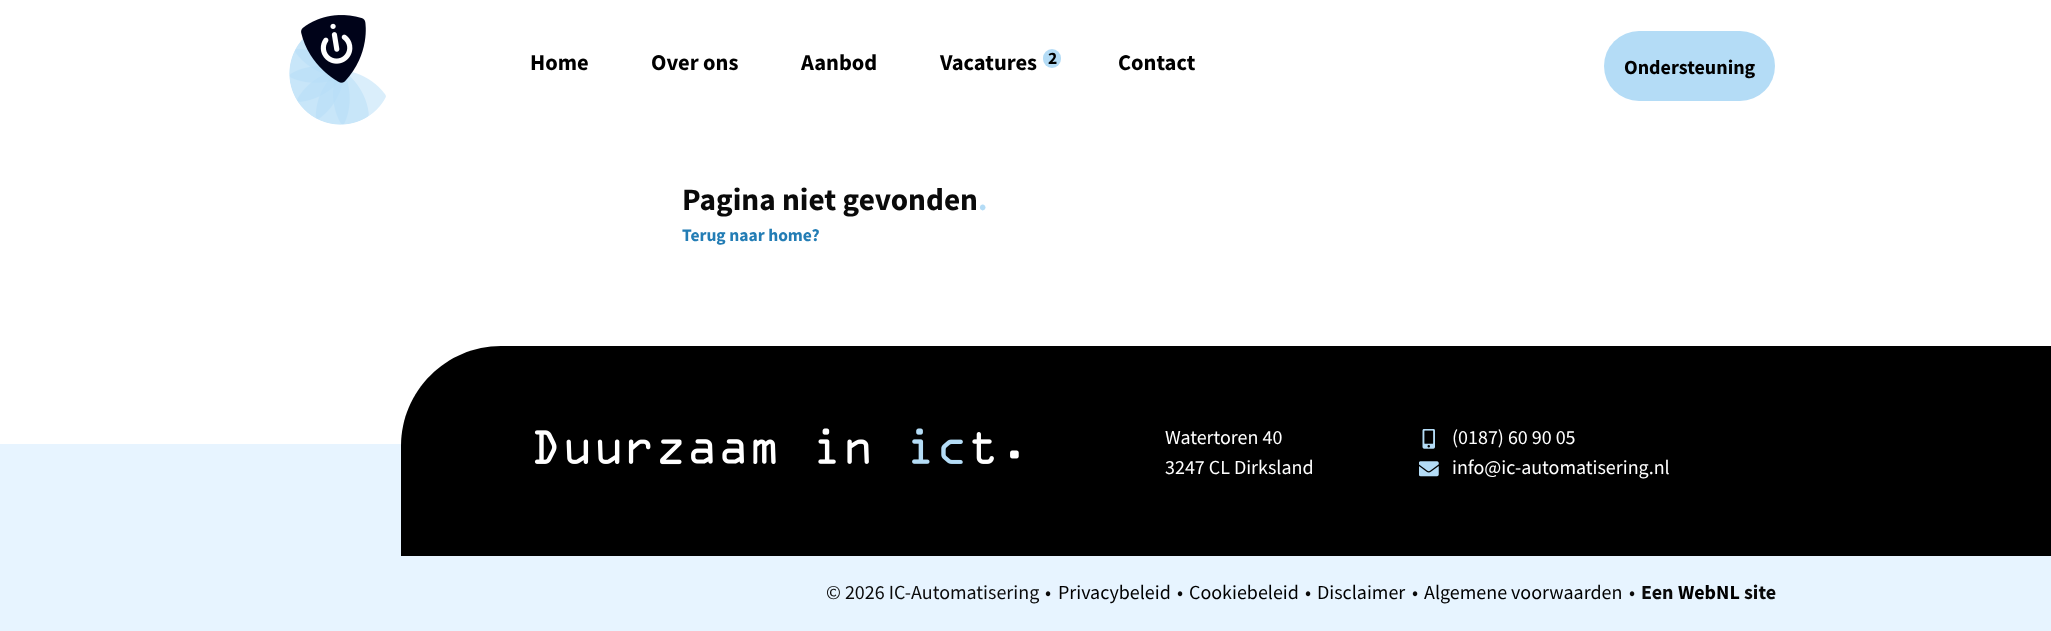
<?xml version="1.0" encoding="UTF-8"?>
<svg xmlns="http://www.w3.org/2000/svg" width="2051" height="631">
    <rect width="100%" height="100%" fill="#FFFFFF"/>
    <image x="289" y="15" width="97" height="110" href="img_01.png"/>
    <text x="530" y="70" font-family="Source Sans Pro" font-size="22.5" font-weight="700" fill="#000000">Home</text>
    <text x="651" y="70" font-family="Source Sans Pro" font-size="22.5" font-weight="700" fill="#000000">Over ons</text>
    <text x="801" y="70" font-family="Source Sans Pro" font-size="22.5" font-weight="700" fill="#000000">Aanbod</text>
    <text x="940" y="70" font-family="Source Sans Pro" font-size="22.5" font-weight="700" fill="#000000">Vacatures</text>
    <rect x="1043" y="49" width="18" height="19" rx="9" fill="#B4DCF6"/>
    <text x="1048" y="64" font-family="Source Sans Pro" font-size="17.5" font-weight="700" fill="#000000">2</text>
    <text x="1118" y="70" font-family="Source Sans Pro" font-size="22.5" font-weight="700" fill="#000000">Contact</text>
    <rect x="1604" y="31" width="171" height="70" rx="35" fill="#B4DCF6"/>
    <text x="1624" y="74" font-family="Source Sans Pro" font-size="20" font-weight="700" fill="#000000">Ondersteuning</text>
    <text x="682" y="210" font-family="Source Sans Pro" font-size="31.25" font-weight="700" fill="#0A0A0A">Pagina niet gevonden</text>
    <text x="978" y="210" font-family="Source Sans Pro" font-size="31.25" font-weight="700" fill="#B4DCF6">.</text>
    <text x="682" y="241" font-family="Source Sans Pro" font-size="17.5" font-weight="700" fill="#237DB5">Terug naar home?</text>
    <rect x="0" y="444" width="2051" height="187" fill="#E7F4FF"/>
    <path d="M 501 346 H 1776 V 556 H 401 V 446 C 401 391 446 346 501 346 Z" fill="#000000"/>
    <image x="534" y="428" width="485" height="37" href="img_02.png"/>
    <text font-family="Source Sans Pro" font-size="20" fill="#FFFFFF">
        <tspan x="1165" y="444">Watertoren 40</tspan>
        <tspan x="1165" y="474">3247 CL Dirksland</tspan>
    </text>
    <image x="1422" y="429" width="13" height="20" href="img_03.png"/>
    <text x="1452" y="444" font-family="Source Sans Pro" font-size="20" fill="#FFFFFF">(0187) 60 90 05</text>
    <image x="1419" y="461" width="20" height="16" href="img_04.png"/>
    <text x="1452" y="474" font-family="Source Sans Pro" font-size="20" fill="#FFFFFF">info@ic-automatisering.nl</text>
    <rect x="1776" y="346" width="275" height="210" fill="#000000"/>
    <text x="826" y="599" font-family="Source Sans Pro" font-size="20" fill="#0A0A0A">© 2026 IC-Automatisering</text>
    <text x="1045" y="599" font-family="Source Sans Pro" font-size="20" fill="#0A0A0A">•</text>
    <text x="1058" y="599" font-family="Source Sans Pro" font-size="20" fill="#000000">Privacybeleid</text>
    <text x="1177" y="599" font-family="Source Sans Pro" font-size="20" fill="#0A0A0A">•</text>
    <text x="1189" y="599" font-family="Source Sans Pro" font-size="20" fill="#000000">Cookiebeleid</text>
    <text x="1305" y="599" font-family="Source Sans Pro" font-size="20" fill="#0A0A0A">•</text>
    <text x="1317" y="599" font-family="Source Sans Pro" font-size="20" fill="#000000">Disclaimer</text>
    <text x="1412" y="599" font-family="Source Sans Pro" font-size="20" fill="#0A0A0A">•</text>
    <text x="1424" y="599" font-family="Source Sans Pro" font-size="20" fill="#000000">Algemene voorwaarden</text>
    <text x="1629" y="599" font-family="Source Sans Pro" font-size="20" fill="#0A0A0A">•</text>
    <text x="1641" y="599" font-family="Source Sans Pro" font-size="20" font-weight="700" fill="#0A0A0A">Een</text>
    <text x="1678" y="599" font-family="Source Sans Pro" font-size="20" font-weight="700" fill="#000000">WebNL</text>
    <text x="1744" y="599" font-family="Source Sans Pro" font-size="20" font-weight="700" fill="#0A0A0A">site</text>
</svg>
